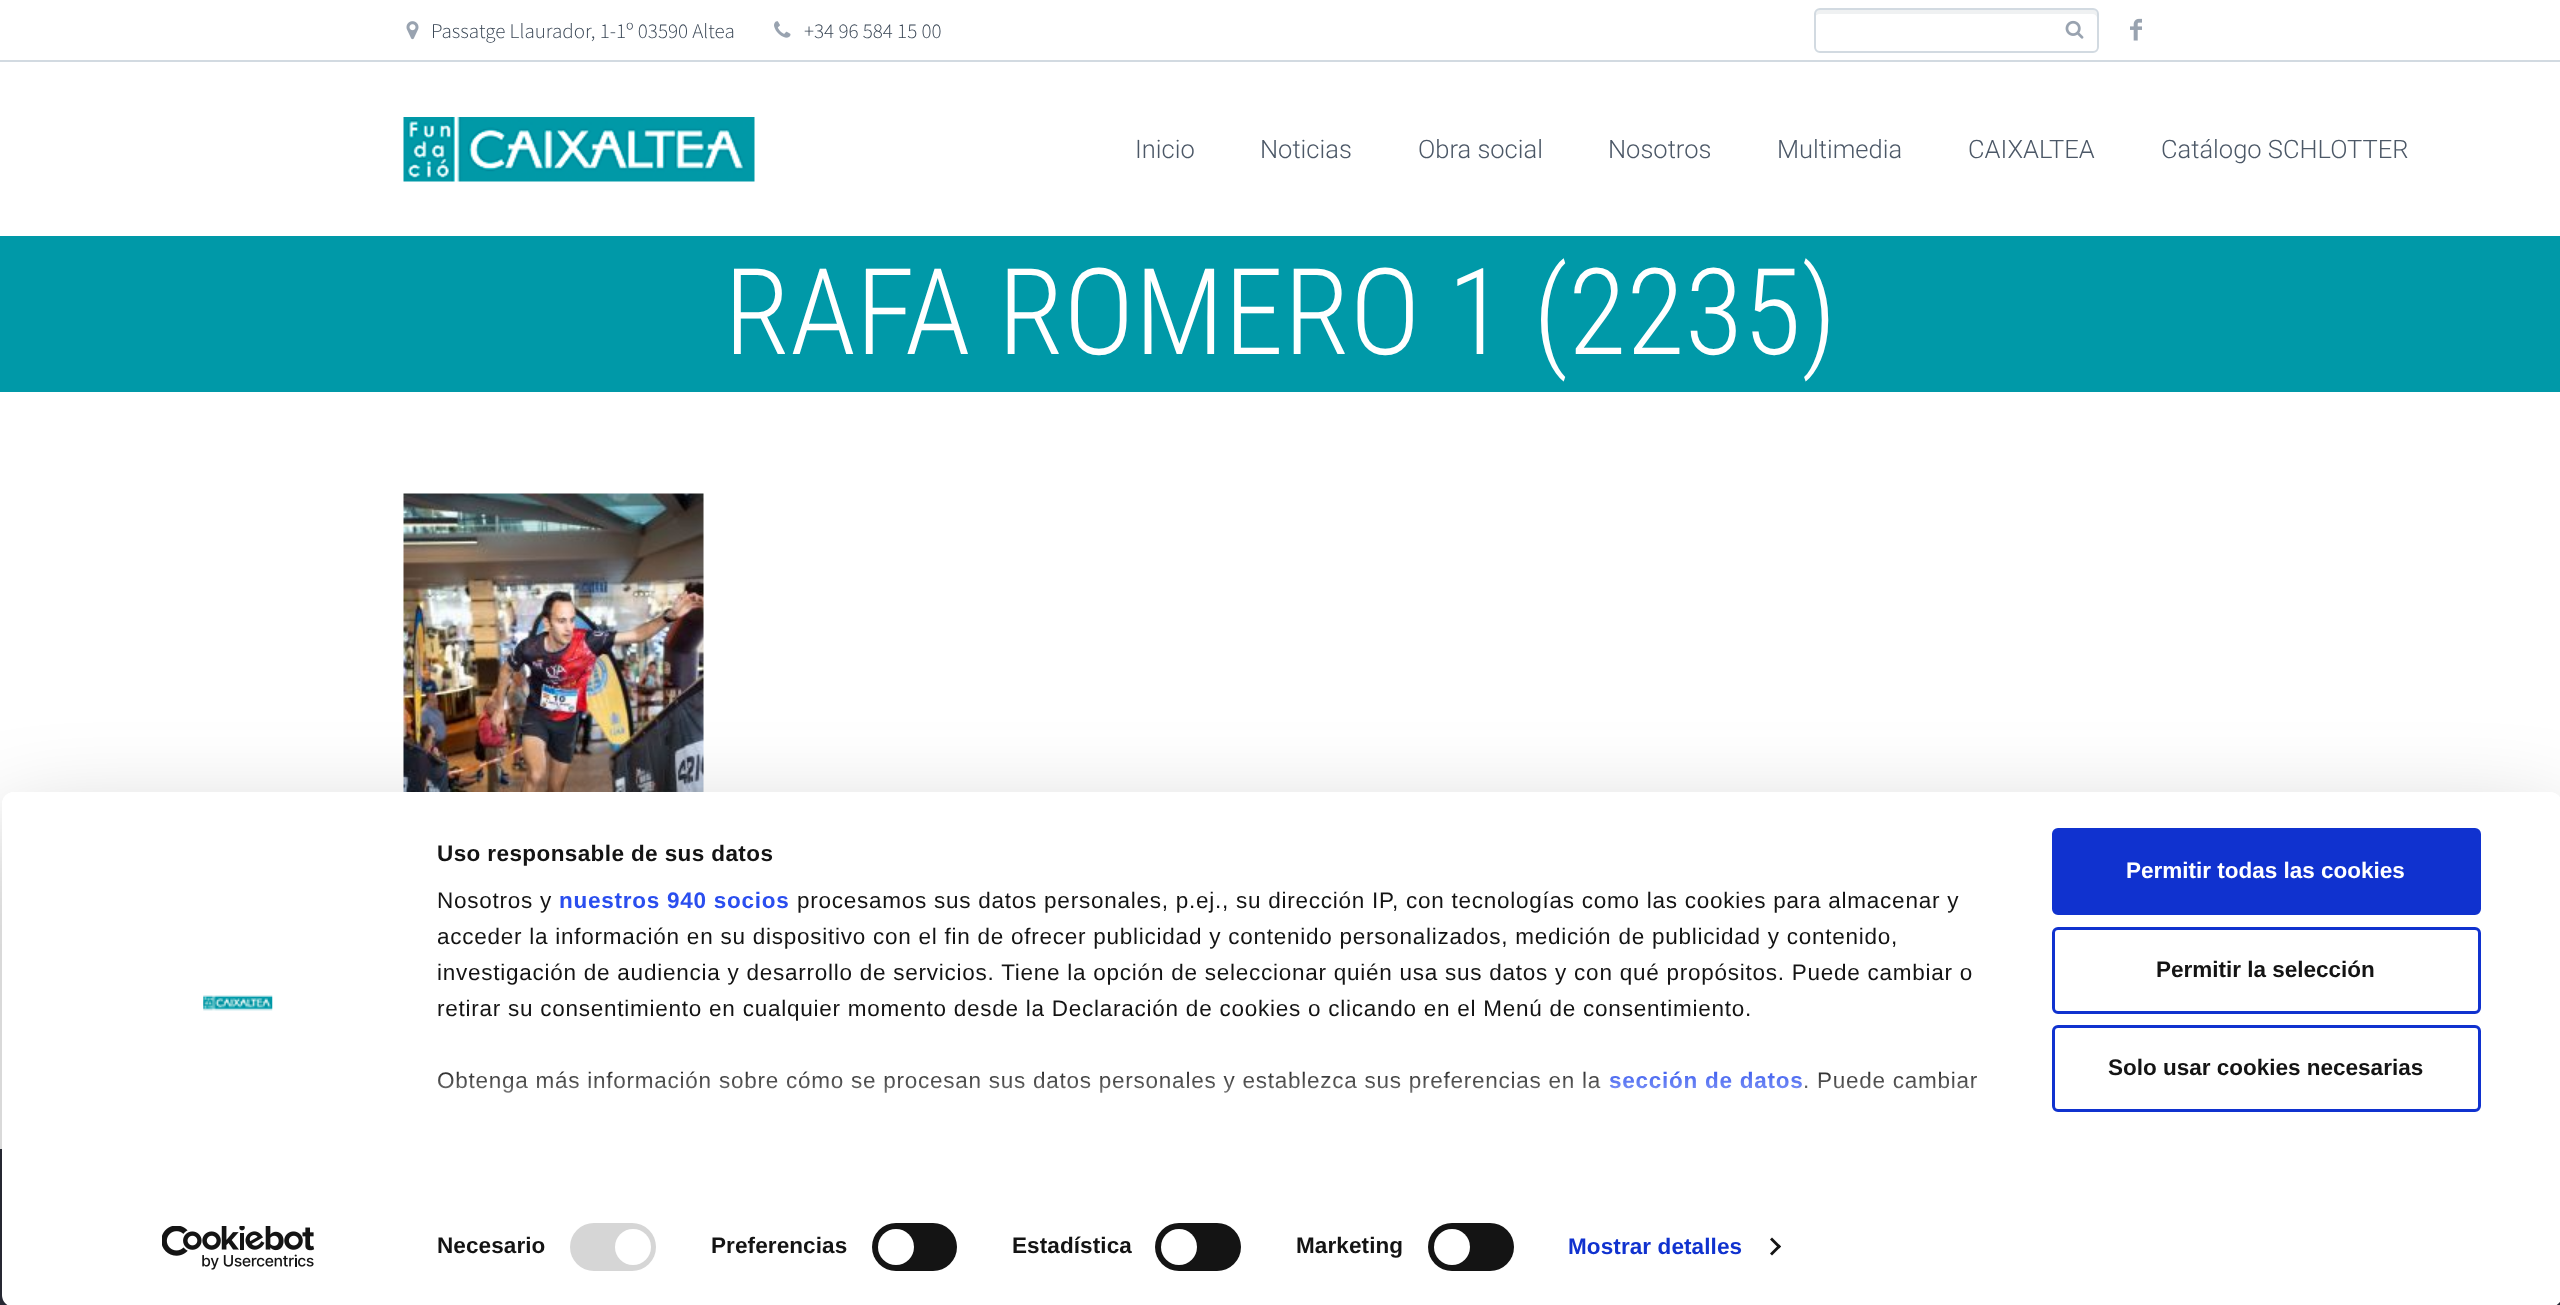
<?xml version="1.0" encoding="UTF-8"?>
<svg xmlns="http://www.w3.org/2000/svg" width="2560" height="1305">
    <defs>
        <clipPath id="clip1"><path d="M 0 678 H 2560 V 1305 H 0 Z M 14 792 H 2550 C 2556.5 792 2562 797.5 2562 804 V 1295 C 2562 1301.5 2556.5 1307 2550 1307 H 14 C 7.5 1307 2 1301.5 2 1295 V 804 C 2 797.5 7.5 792 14 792 Z" clip-rule="evenodd"/></clipPath>
        <filter id="blur1" x="-50%" y="-200%" width="200%" height="500%"><feGaussianBlur stdDeviation="52.5"/></filter>
        <linearGradient id="g1" gradientUnits="userSpaceOnUse" x1="1208" y1="1177" x2="1208" y2="1064"><stop offset="0" stop-color="#FFFFFF"/><stop offset="0.5" stop-color="#FFFFFF" stop-opacity="0.8"/><stop offset="1" stop-color="#FFFFFF" stop-opacity="0"/></linearGradient>
    </defs>
    <rect width="100%" height="100%" fill="#FFFFFF"/>
    <rect x="0" y="60" width="2560" height="2" fill="#D2DAE1"/>
    <image x="406" y="21" width="13" height="19" href="img_01.png"/>
    <text x="431" y="38" font-family="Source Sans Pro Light" font-size="21" font-weight="300" fill="#384554">Passatge Llaurador, 1-1º 03590 Altea</text>
    <image x="774" y="21" width="17" height="17" href="img_02.png"/>
    <text x="804" y="38" font-family="Source Sans Pro Light" font-size="21" font-weight="300" fill="#384554">+34 96 584 15 00</text>
    <path d="M 1820 14 H 2092 C 2095 14 2097 16 2097 18 V 14 C 2097 11 2095 9 2092 9 H 1820 C 1817 9 1815 11 1815 14 V 18 C 1815 16 1817 14 1820 14 Z" fill="#EFF1F2"/>
    <rect x="1815" y="9" width="283" height="43" rx="5" fill="none" stroke="#D2DAE1" stroke-width="2"/>
    <image x="2065" y="20" width="19" height="19" href="img_03.png"/>
    <image x="2130" y="18" width="12" height="23" href="img_04.png"/>
    <image x="403" y="117" width="352" height="65" href="img_05.png"/>
    <text x="1135" y="158" font-family="Roboto" font-size="25.5" font-weight="300" fill="#4C5867">Inicio</text>
    <text x="1260" y="158" font-family="Roboto" font-size="25.5" font-weight="300" fill="#4C5867">Noticias</text>
    <text x="1418" y="158" font-family="Roboto" font-size="25.5" font-weight="300" fill="#4C5867">Obra social</text>
    <text x="1608" y="158" font-family="Roboto" font-size="25.5" font-weight="300" fill="#4C5867">Nosotros</text>
    <text x="1777" y="158" font-family="Roboto" font-size="25.5" font-weight="300" fill="#4C5867">Multimedia</text>
    <text x="1968" y="158" font-family="Roboto" font-size="25.5" font-weight="300" fill="#4C5867">CAIXALTEA</text>
    <text x="2161" y="158" font-family="Roboto" font-size="25.5" font-weight="300" fill="#4C5867">Catálogo SCHLOTTER</text>
    <rect x="0" y="236" width="2560" height="156" fill="#0099A8"/>
    <text x="724" y="354" font-family="Roboto Condensed" font-size="120" font-weight="300" fill="#FFFFFF">RAFA ROMERO 1 (2235)</text>
    <image x="403" y="493" width="301" height="299" href="img_06.png"/>
    <rect x="0" y="1149" width="2560" height="156" fill="#2C2E3A"/>
    <g clip-path="url(#clip1)">
        <rect x="2" y="837" width="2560" height="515" rx="12" fill="#000000" fill-opacity="0.3" filter="url(#blur1)"/>
    </g>
    <rect x="2" y="792" width="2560" height="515" rx="12" fill="#FFFFFF"/>
    <text x="437" y="861" font-family="Liberation Sans" font-size="22.5" font-weight="700" letter-spacing="0.4" fill="#141414">Uso responsable de sus datos</text>
    <text x="437" y="908" font-family="Liberation Sans" font-size="22.5" letter-spacing="0.75" fill="#141414">Nosotros y</text>
    <text x="559" y="908" font-family="Liberation Sans" font-size="22.5" font-weight="700" letter-spacing="0.75" fill="#2A4EEF">nuestros 940 socios</text>
    <text x="797" y="908" font-family="Liberation Sans" font-size="22.5" letter-spacing="0.75" fill="#141414">procesamos sus datos personales, p.ej., su dirección IP, con tecnologías como las cookies para almacenar y</text>
    <text font-family="Liberation Sans" font-size="22.5" letter-spacing="0.75" fill="#141414">
        <tspan x="437" y="944">acceder la información en su dispositivo con el fin de ofrecer publicidad y contenido personalizados, medición de publicidad y contenido,</tspan>
        <tspan x="437" y="980">investigación de audiencia y desarrollo de servicios. Tiene la opción de seleccionar quién usa sus datos y con qué propósitos. Puede cambiar o</tspan>
        <tspan x="437" y="1016">retirar su consentimiento en cualquier momento desde la Declaración de cookies o clicando en el Menú de consentimiento.</tspan>
    </text>
    <text x="437" y="1088" font-family="Liberation Sans" font-size="22.5" letter-spacing="0.75" fill="#141414">Obtenga más información sobre cómo se procesan sus datos personales y establezca sus preferencias en la</text>
    <text x="1609" y="1088" font-family="Liberation Sans" font-size="22.5" font-weight="700" letter-spacing="0.75" fill="#2A4EEF">sección de datos</text>
    <text x="1803" y="1088" font-family="Liberation Sans" font-size="22.5" letter-spacing="0.75" fill="#141414">. Puede cambiar</text>
    <rect x="438" y="1071" width="1540" height="22" fill="url(#g1)"/>
    <text x="437" y="1253" font-family="Liberation Sans" font-size="22.5" font-weight="700" letter-spacing="0.1" fill="#141414">Necesario</text>
    <rect x="570" y="1223" width="86" height="48" rx="24" fill="#D6D6D6"/>
    <circle cx="633" cy="1247" r="18" fill="#FFFFFF"/>
    <text x="711" y="1253" font-family="Liberation Sans" font-size="22.5" font-weight="700" letter-spacing="0.1" fill="#141414">Preferencias</text>
    <rect x="872" y="1223" width="85" height="48" rx="24" fill="#141414"/>
    <circle cx="896" cy="1247" r="18" fill="#FFFFFF"/>
    <text x="1012" y="1253" font-family="Liberation Sans" font-size="22.5" font-weight="700" letter-spacing="0.1" fill="#141414">Estadística</text>
    <rect x="1155" y="1223" width="86" height="48" rx="24" fill="#141414"/>
    <circle cx="1179" cy="1247" r="18" fill="#FFFFFF"/>
    <text x="1296" y="1253" font-family="Liberation Sans" font-size="22.5" font-weight="700" letter-spacing="0.1" fill="#141414">Marketing</text>
    <rect x="1428" y="1223" width="86" height="48" rx="24" fill="#141414"/>
    <circle cx="1452" cy="1247" r="18" fill="#FFFFFF"/>
    <text x="1568" y="1254" font-family="Liberation Sans" font-size="22.5" font-weight="700" letter-spacing="0.1" fill="#1032CF">Mostrar detalles</text>
    <path d="M 1772 1237.5 L 1781 1246.5 L 1779 1248.5 L 1770 1239.5 Z" fill="#141414"/>
    <path d="M 1779 1244.5 L 1781 1246.5 L 1772 1255.5 L 1770 1253.5 Z" fill="#141414"/>
    <rect x="2053.5" y="829.5" width="426" height="84" rx="4.5" fill="#1032CF" stroke="#1032CF" stroke-width="3"/>
    <text x="2126" y="878" font-family="Liberation Sans" font-size="22.5" font-weight="700" fill="#FFFFFF">Permitir todas las cookies</text>
    <rect x="2053.5" y="928.5" width="426" height="84" rx="4.5" fill="none" stroke="#1032CF" stroke-width="3"/>
    <text x="2156" y="977" font-family="Liberation Sans" font-size="22.5" font-weight="700" fill="#141414">Permitir la selección</text>
    <rect x="2053.5" y="1026.5" width="426" height="84" rx="4.5" fill="none" stroke="#1032CF" stroke-width="3"/>
    <text x="2108" y="1075" font-family="Liberation Sans" font-size="22.5" font-weight="700" fill="#141414">Solo usar cookies necesarias</text>
    <image x="203" y="995" width="70" height="16" href="img_07.png"/>
    <image x="162" y="1226" width="153" height="44" href="img_08.png"/>
</svg>
